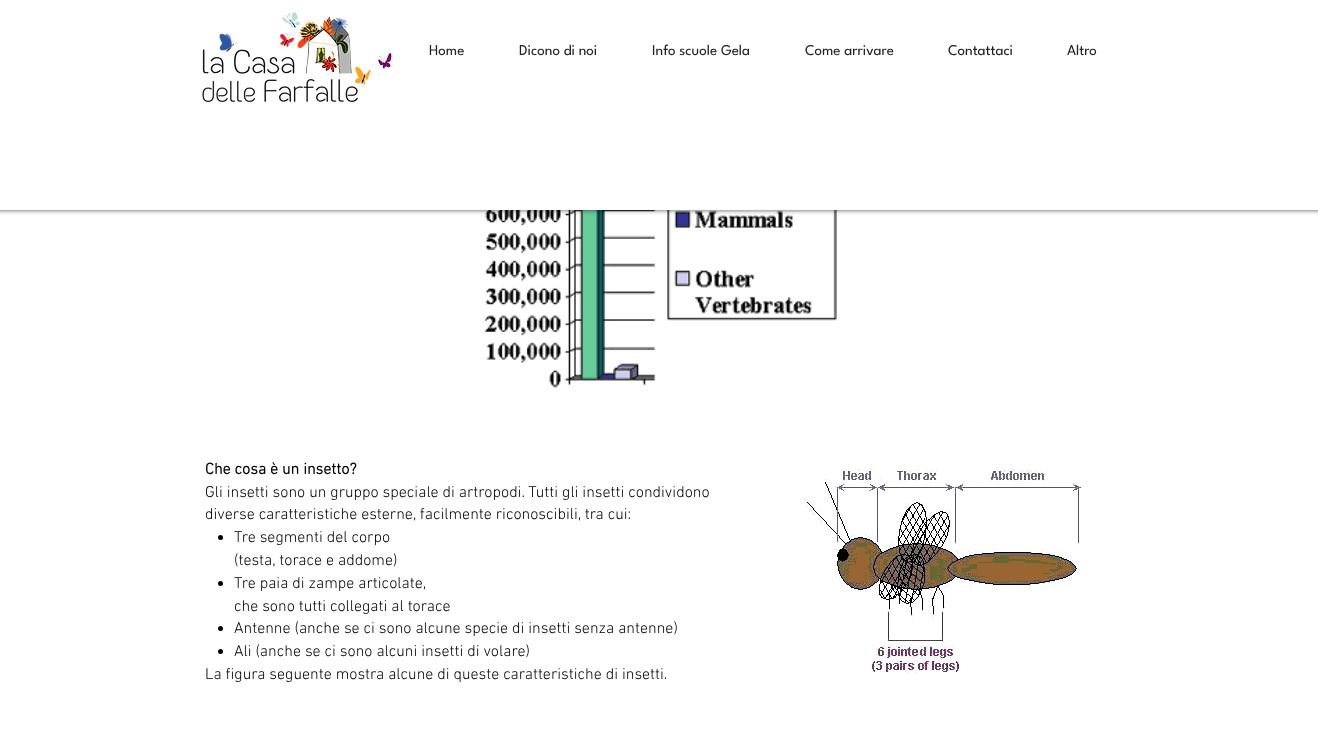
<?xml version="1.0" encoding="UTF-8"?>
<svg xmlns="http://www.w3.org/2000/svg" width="1318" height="747">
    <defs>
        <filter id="blur1" x="-50%" y="-200%" width="200%" height="500%"><feGaussianBlur stdDeviation="2.5"/></filter>
    </defs>
    <rect width="100%" height="100%" fill="#FFFFFF"/>
    <image x="468" y="210" width="369" height="178" href="img_02.png"/>
    <rect x="-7" y="-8" width="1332" height="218" fill="#000000" fill-opacity="0.7" filter="url(#blur1)"/>
    <rect x="0" y="0" width="1318" height="210" fill="#FFFFFF"/>
    <image x="202" y="12" width="190" height="90" href="img_01.png"/>
    <text x="429" y="55" font-family="League Spartan" font-size="15" fill="#212121">Home</text>
    <text x="519" y="55" font-family="League Spartan" font-size="15" fill="#212121">Dicono di noi</text>
    <text x="652" y="55" font-family="League Spartan" font-size="15" fill="#212121">Info scuole Gela</text>
    <text x="805" y="55" font-family="League Spartan" font-size="15" fill="#212121">Come arrivare</text>
    <text x="948" y="55" font-family="League Spartan" font-size="15" fill="#212121">Contattaci</text>
    <text x="1067" y="55" font-family="League Spartan" font-size="15" fill="#212121">Altro</text>
    <text x="205" y="474" font-family="'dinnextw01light'" font-size="16" font-weight="700" fill="#000000">Che cosa è un insetto?</text>
    <text font-family="'dinnextw01light'" font-size="16" font-weight="300" fill="#000000">
        <tspan x="205" y="497">Gli insetti sono un gruppo speciale di artropodi. Tutti gli insetti condividono</tspan>
        <tspan x="205" y="519">diverse caratteristiche esterne, facilmente riconoscibili, tra cui:</tspan>
    </text>
    <circle cx="220.5" cy="537.5" r="2.5" fill="#000000"/>
    <text font-family="'dinnextw01light'" font-size="16" font-weight="300" fill="#000000">
        <tspan x="234" y="542">Tre segmenti del corpo</tspan>
        <tspan x="234" y="565">(testa, torace e addome)</tspan>
    </text>
    <circle cx="220.5" cy="583.5" r="2.5" fill="#000000"/>
    <text font-family="'dinnextw01light'" font-size="16" font-weight="300" fill="#000000">
        <tspan x="234" y="588">Tre paia di zampe articolate,</tspan>
        <tspan x="234" y="611">che sono tutti collegati al torace</tspan>
    </text>
    <circle cx="220.5" cy="628.5" r="2.5" fill="#000000"/>
    <text x="234" y="633" font-family="'dinnextw01light'" font-size="16" font-weight="300" fill="#000000">Antenne (anche se ci sono alcune specie di insetti senza antenne)</text>
    <circle cx="220.5" cy="651.5" r="2.5" fill="#000000"/>
    <text x="234" y="656" font-family="'dinnextw01light'" font-size="16" font-weight="300" fill="#000000">Ali (anche se ci sono alcuni insetti di volare)</text>
    <text x="205" y="679" font-family="'dinnextw01light'" font-size="16" font-weight="300" fill="#000000">La figura seguente mostra alcune di queste caratteristiche di insetti.</text>
    <image x="804" y="469" width="278" height="205" href="img_03.png"/>
</svg>
